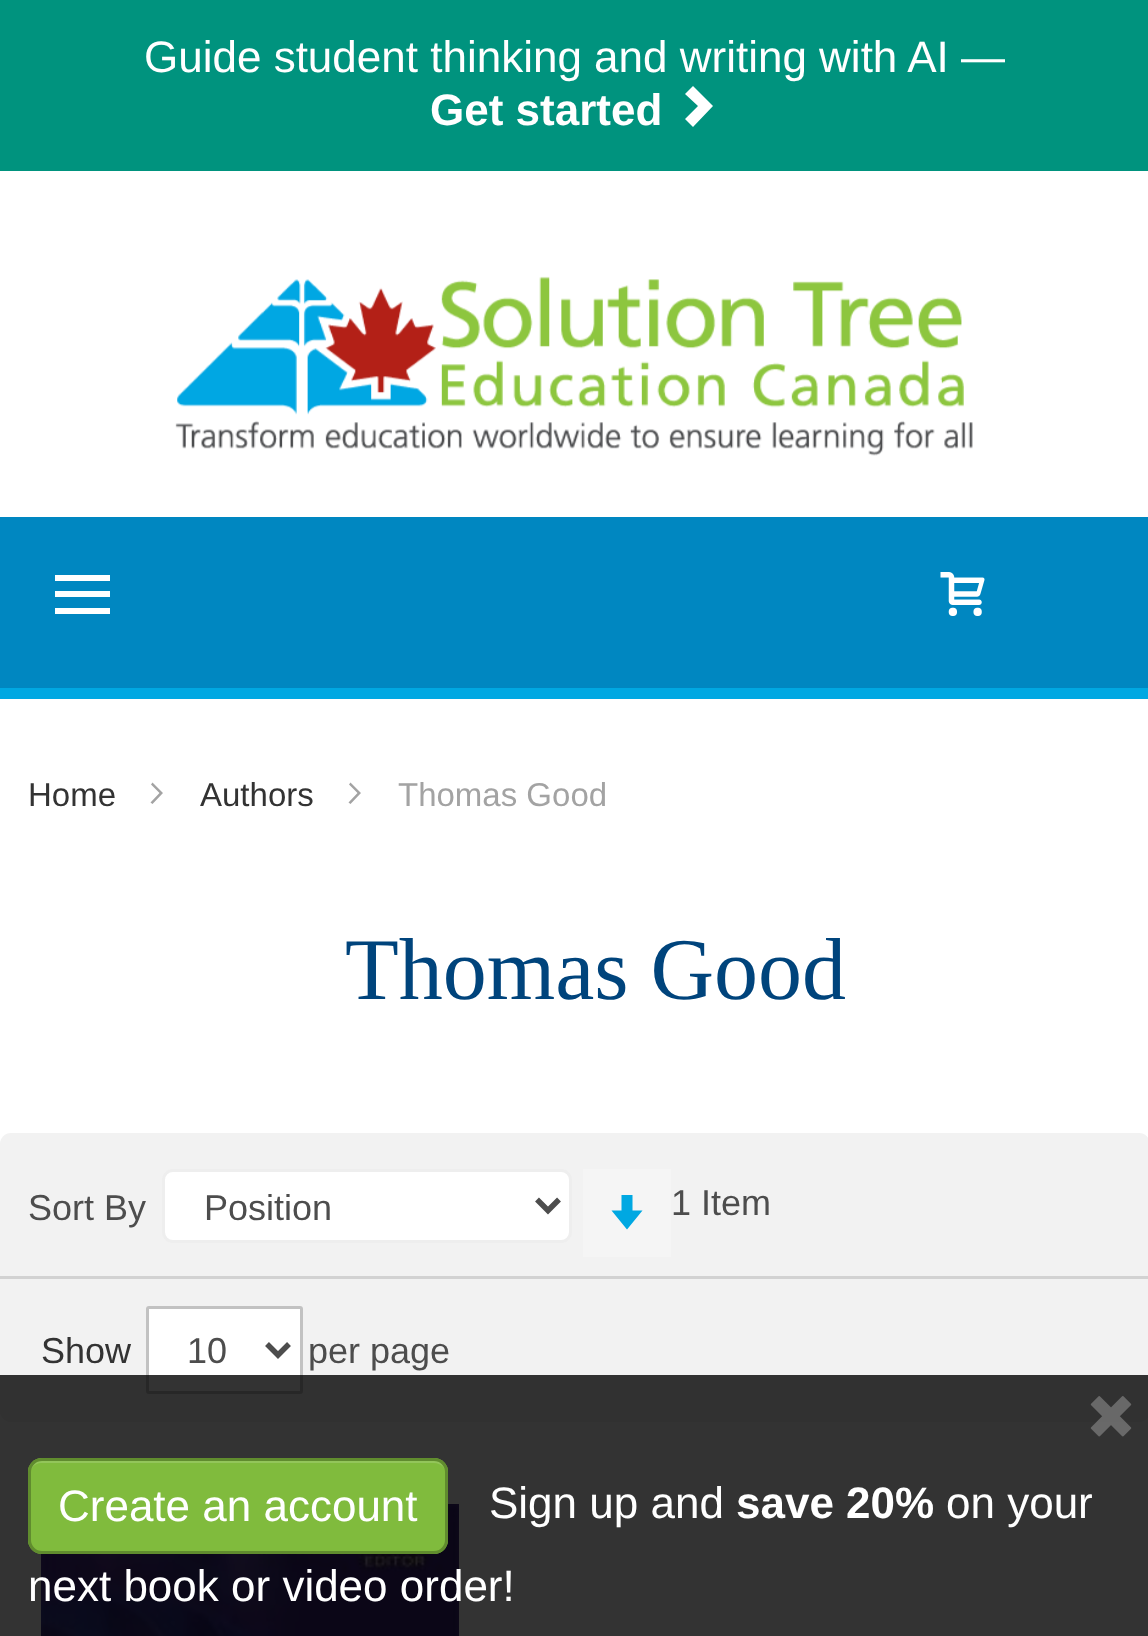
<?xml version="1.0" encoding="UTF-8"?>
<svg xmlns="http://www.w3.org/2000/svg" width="1148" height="1636">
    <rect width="100%" height="100%" fill="#FFFFFF"/>
    <rect x="0" y="0" width="1148" height="171" fill="#00937E"/>
    <text x="144" y="72" font-family="Liberation Sans" font-size="44" fill="#FFFFFF">Guide student thinking and writing with AI —</text>
    <text x="430" y="125" font-family="Liberation Sans" font-size="44" font-weight="700" fill="#FFFFFF">Get started</text>
    <path d="M 713 106 L 693 127 L 685 119 L 698 106 L 685 94 L 693 86 Z" fill="#FFFFFF"/>
    <image x="175" y="276" width="798" height="180" href="img_01.png"/>
    <rect x="0" y="517" width="1148" height="171" fill="#0087C1"/>
    <rect x="0" y="688" width="1148" height="11" fill="#00A8E2"/>
    <rect x="55" y="575" width="55" height="6" fill="#FFFFFF"/>
    <rect x="55" y="591" width="55" height="6" fill="#FFFFFF"/>
    <rect x="55" y="608" width="55" height="6" fill="#FFFFFF"/>
    <image x="940" y="572" width="45" height="44" href="img_02.png"/>
    <text x="28" y="806" font-family="Liberation Sans" font-size="33" fill="#333333">Home</text>
    <path d="M 163 793 L 152.5 782.5 L 151 784.5 L 159.5 793 L 150.5 802.5 L 152.5 804 Z" fill="#A3A3A3"/>
    <text x="200" y="806" font-family="Liberation Sans" font-size="33" fill="#333333">Authors</text>
    <path d="M 361 793 L 350.5 782.5 L 349 784.5 L 357.5 793 L 348.5 802.5 L 350.5 804 Z" fill="#A3A3A3"/>
    <text x="398" y="806" font-family="Liberation Sans" font-size="33" fill="#A3A3A3">Thomas Good</text>
    <text x="345" y="999" font-family="Liberation Serif" font-size="88" fill="#00447C">Thomas Good</text>
    <rect x="0" y="1133" width="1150" height="289" rx="11" fill="#F2F2F2"/>
    <text x="28" y="1220" font-family="Liberation Sans" font-size="36" fill="#4D4D4D">Sort By</text>
    <rect x="163.5" y="1170.5" width="407" height="71" rx="9.5" fill="#FFFFFF" stroke="#EEEEEE" stroke-width="3"/>
    <path d="M 537 1199.5 L 548 1210.5 L 559 1199.5" fill="none" stroke="#4D4D4D" stroke-width="5.5"/>
    <text x="204" y="1220" font-family="Liberation Sans" font-size="36" fill="#4D4D4D">Position</text>
    <rect x="583" y="1169" width="88" height="88" fill="#F5F5F5"/>
    <path d="M 632.5 1210.5 V 1195 H 621.5 V 1210.5 H 611.5 L 627 1229.5 L 642.5 1210.5 Z" fill="#00A8E2"/>
    <text x="671" y="1215" font-family="Liberation Sans" font-size="36" fill="#4D4D4D">1 Item</text>
    <rect x="0" y="1276" width="1148" height="3" fill="#D2D2D2"/>
    <text x="41" y="1363" font-family="Liberation Sans" font-size="36" fill="#333333">Show</text>
    <rect x="147.5" y="1307.5" width="154" height="85" rx="1.5" fill="#FFFFFF" stroke="#C2C2C2" stroke-width="3"/>
    <path d="M 267 1344 L 278 1355 L 289 1344" fill="none" stroke="#4D4D4D" stroke-width="5.5"/>
    <text x="187" y="1363" font-family="Liberation Sans" font-size="36" fill="#4D4D4D">10</text>
    <text x="308" y="1363" font-family="Liberation Sans" font-size="36" fill="#4D4D4D">per page</text>
    <image x="41" y="1504" width="418" height="132" href="img_03.png"/>
    <rect x="0" y="1375" width="1148" height="261" fill="#000000" fill-opacity="0.8"/>
    <image x="1090" y="1396" width="42" height="41" href="img_04.png"/>
    <rect x="28" y="1458" width="420" height="96" rx="14" fill="#80BB3D"/>
    <path d="M 41 1463 H 434 C 441 1463 446 1468 446 1474 V 1471 C 446 1465 441 1460 435 1460 H 41 C 35 1460 30 1465 30 1471 V 1474 C 30 1468 35 1463 41 1463 Z" fill="#93C55A"/>
    <rect x="29.5" y="1459.5" width="417" height="93" rx="12.5" fill="none" stroke="#608C2E" stroke-width="3"/>
    <text x="58" y="1521" font-family="Liberation Sans" font-size="44" fill="#FFFFFF">Create an account</text>
    <text x="489" y="1518" font-family="Liberation Sans" font-size="44" fill="#FFFFFF">Sign up and</text>
    <text x="736" y="1518" font-family="Liberation Sans" font-size="44" font-weight="700" fill="#FFFFFF">save 20%</text>
    <text x="946" y="1518" font-family="Liberation Sans" font-size="44" fill="#FFFFFF">on your</text>
    <text x="28" y="1601" font-family="Liberation Sans" font-size="44" fill="#FFFFFF">next book or video order!</text>
</svg>
